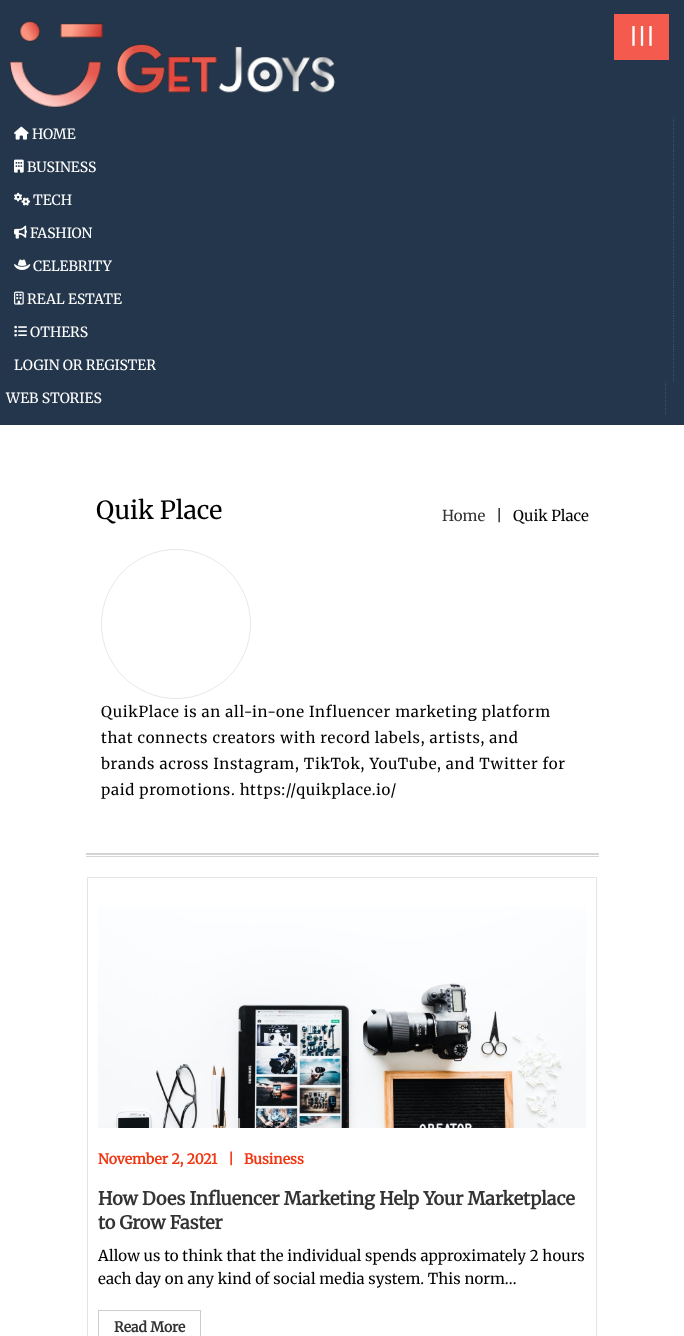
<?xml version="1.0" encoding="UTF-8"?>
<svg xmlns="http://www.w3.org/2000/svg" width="684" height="1336">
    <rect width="100%" height="100%" fill="#FFFFFF"/>
    <rect x="0" y="0" width="684" height="425" fill="#23364B"/>
    <image x="10" y="21" width="325" height="87" href="img_01.png"/>
    <rect x="614" y="14" width="55" height="46" fill="#F45A4E"/>
    <text x="629" y="44" font-family="Merriweather" font-size="20" font-weight="700" fill="#FFFFFF">|||</text>
    <path d="M 673.5 118 V 151" fill="none" stroke="#365670" stroke-dasharray="1 1"/>
    <image x="14" y="126" width="15" height="14" href="img_02.png"/>
    <text x="32" y="139" font-family="Merriweather" font-size="14" font-weight="300" fill="#FFFFFF">HOME</text>
    <path d="M 673.5 151 V 184" fill="none" stroke="#365670" stroke-dasharray="1 1"/>
    <image x="14" y="159" width="10" height="14" href="img_03.png"/>
    <text x="27" y="172" font-family="Merriweather" font-size="14" font-weight="300" fill="#FFFFFF">BUSINESS</text>
    <path d="M 673.5 184 V 217" fill="none" stroke="#365670" stroke-dasharray="1 1"/>
    <image x="14" y="192" width="17" height="14" href="img_04.png"/>
    <text x="33" y="205" font-family="Merriweather" font-size="14" font-weight="300" fill="#FFFFFF">TECH</text>
    <path d="M 673.5 217 V 250" fill="none" stroke="#365670" stroke-dasharray="1 1"/>
    <image x="14" y="225" width="13" height="14" href="img_05.png"/>
    <text x="30" y="238" font-family="Merriweather" font-size="14" font-weight="300" fill="#FFFFFF">FASHION</text>
    <path d="M 673.5 250 V 283" fill="none" stroke="#365670" stroke-dasharray="1 1"/>
    <image x="14" y="259" width="17" height="11" href="img_06.png"/>
    <text x="33" y="271" font-family="Merriweather" font-size="14" font-weight="300" fill="#FFFFFF">CELEBRITY</text>
    <path d="M 673.5 283 V 316" fill="none" stroke="#365670" stroke-dasharray="1 1"/>
    <image x="14" y="291" width="10" height="14" href="img_07.png"/>
    <text x="27" y="304" font-family="Merriweather" font-size="14" font-weight="300" fill="#FFFFFF">REAL ESTATE</text>
    <path d="M 673.5 316 V 349" fill="none" stroke="#365670" stroke-dasharray="1 1"/>
    <image x="14" y="325" width="13" height="12" href="img_08.png"/>
    <text x="30" y="337" font-family="Merriweather" font-size="14" font-weight="300" fill="#FFFFFF">OTHERS</text>
    <path d="M 673.5 349 V 382" fill="none" stroke="#365670" stroke-dasharray="1 1"/>
    <text x="14" y="370" font-family="Merriweather" font-size="14" font-weight="300" fill="#FFFFFF">LOGIN OR REGISTER</text>
    <path d="M 665.5 382 V 415" fill="none" stroke="#365670" stroke-dasharray="1 1"/>
    <text x="6" y="403" font-family="Merriweather" font-size="14" font-weight="300" fill="#FFFFFF">WEB STORIES</text>
    <rect x="86" y="853" width="513" height="2" fill="#D4D4D4"/>
    <rect x="86" y="856" width="513" height="1" fill="#D4D4D4"/>
    <text x="96" y="519" font-family="Merriweather" font-size="25" font-weight="300" fill="#000000">Quik Place</text>
    <text x="442" y="521" font-family="Merriweather" font-size="15" font-weight="300" fill="#333333">Home</text>
    <text x="496" y="521" font-family="Merriweather" font-size="15" font-weight="300" fill="#000000">|</text>
    <text x="513" y="521" font-family="Merriweather" font-size="15" font-weight="300" fill="#000000">Quik Place</text>
    <circle cx="176" cy="624" r="74.5" fill="none" stroke="#E8E8E8"/>
    <text font-family="Merriweather" font-size="15" font-weight="300" letter-spacing="0.7" fill="#000000">
        <tspan x="101" y="717">QuikPlace is an all-in-one Influencer marketing platform</tspan>
        <tspan x="101" y="743">that connects creators with record labels, artists, and</tspan>
        <tspan x="101" y="769">brands across Instagram, TikTok, YouTube, and Twitter for</tspan>
        <tspan x="101" y="795">paid promotions. https://quikplace.io/</tspan>
    </text>
    <rect x="87.5" y="877.5" width="509" height="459" fill="none" stroke="#E7E3E1"/>
    <image x="98" y="907" width="488" height="221" href="img_09.png"/>
    <text x="98" y="1164" font-family="Merriweather" font-size="14" font-weight="700" fill="#F03713">November 2, 2021</text>
    <text x="228" y="1164" font-family="Merriweather" font-size="14" font-weight="700" fill="#F03713">|</text>
    <text x="244" y="1164" font-family="Merriweather" font-size="14" font-weight="700" fill="#F03713">Business</text>
    <text font-family="Merriweather" font-size="18" font-weight="700" fill="#333333">
        <tspan x="98" y="1205">How Does Influencer Marketing Help Your Marketplace</tspan>
        <tspan x="98" y="1229">to Grow Faster</tspan>
    </text>
    <text font-family="Merriweather" font-size="15" font-weight="300" letter-spacing="0.1" fill="#000000">
        <tspan x="98" y="1261">Allow us to think that the individual spends approximately 2 hours</tspan>
        <tspan x="98" y="1284">each day on any kind of social media system. This norm…</tspan>
    </text>
    <rect x="98.5" y="1310.5" width="102" height="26" fill="none" stroke="#CCCCCC"/>
    <text x="114" y="1332" font-family="Merriweather" font-size="14" font-weight="700" fill="#333333">Read More</text>
</svg>
